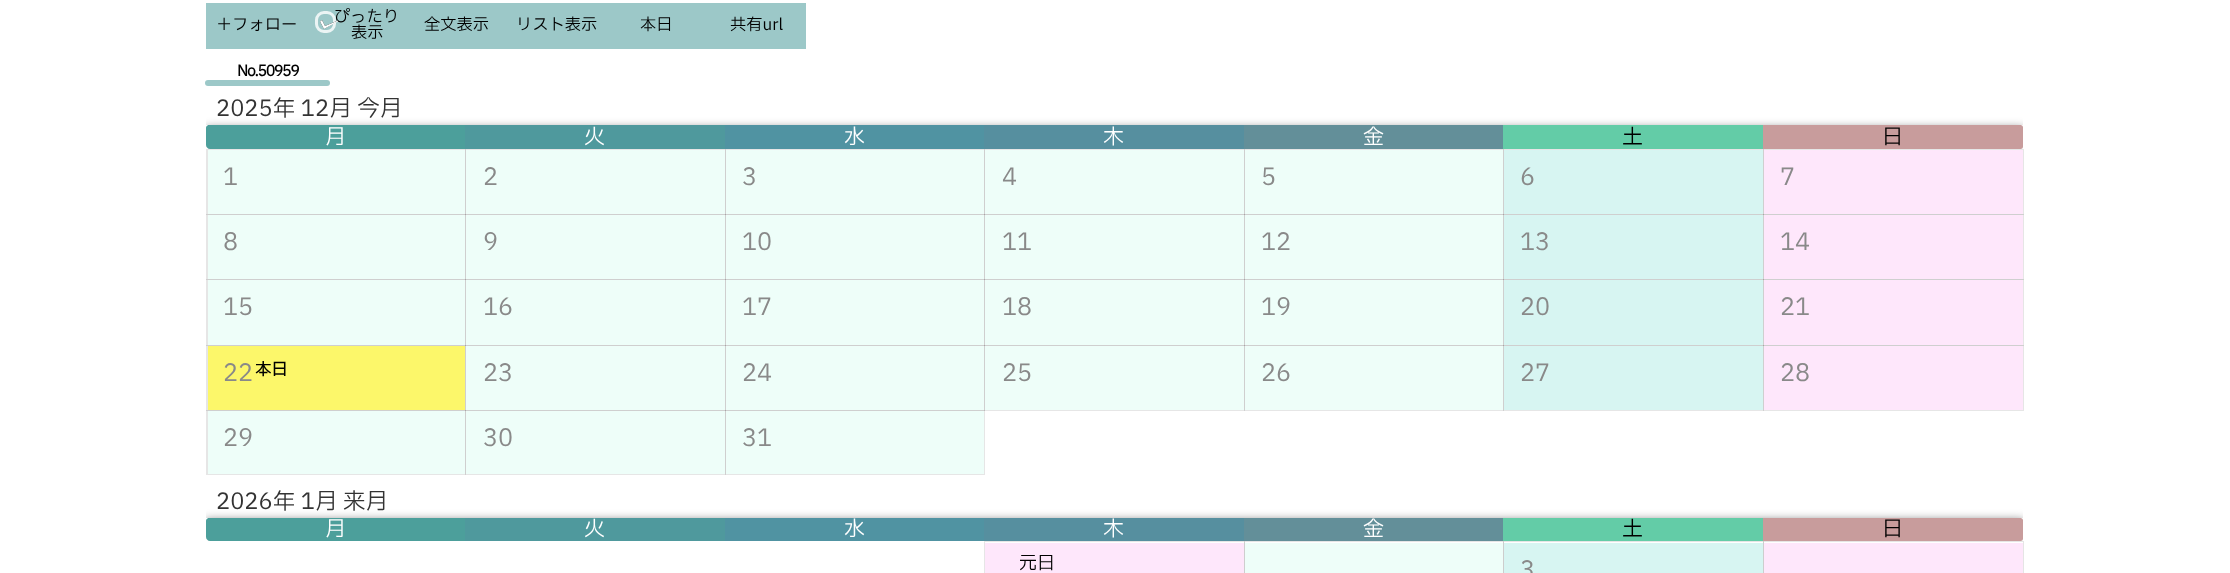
<?xml version="1.0" encoding="UTF-8"?>
<svg xmlns="http://www.w3.org/2000/svg" width="2230" height="573">
    <defs>
        <clipPath id="clip1"><path d="M 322 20 L 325 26 L 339 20 L 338 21 L 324 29 L 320 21.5 Z"/></clipPath>
        <filter id="blur1" x="-50%" y="-200%" width="200%" height="500%"><feGaussianBlur stdDeviation="2"/></filter>
        <clipPath id="clip2"><path d="M 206 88 H 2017 C 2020.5 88 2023 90.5 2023 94 V 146.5 C 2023 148 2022 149 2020.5 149 H 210 C 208 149 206 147 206 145 Z"/></clipPath>
        <filter id="blur2" x="-50%" y="-200%" width="200%" height="500%"><feGaussianBlur stdDeviation="5"/></filter>
        <clipPath id="clip3"><rect x="206" y="125" width="1817" height="24" rx="2.5"/></clipPath>
        <clipPath id="clip4"><path d="M 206 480 H 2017 C 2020.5 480 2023 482.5 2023 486 V 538.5 C 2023 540 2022 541 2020.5 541 H 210 C 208 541 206 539 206 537 Z"/></clipPath>
        <clipPath id="clip5"><rect x="206" y="518" width="1817" height="23" rx="2.5"/></clipPath>
    </defs>
    <rect width="100%" height="100%" fill="#FFFFFF"/>
    <rect x="726" y="411" width="259" height="64" fill="#E6E6E6"/>
    <rect x="466" y="474" width="259" height="1" fill="#E6E6E6"/>
    <rect x="725" y="410" width="1" height="65" fill="#CFCFCF"/>
    <rect x="206" y="411" width="259" height="64" fill="#E6E6E6"/>
    <rect x="465" y="410" width="1" height="65" fill="#CFCFCF"/>
    <rect x="1764" y="346" width="260" height="65" fill="#E6E6E6"/>
    <rect x="1504" y="410" width="259" height="1" fill="#E6E6E6"/>
    <rect x="1763" y="345" width="1" height="66" fill="#CFCFCF"/>
    <rect x="1245" y="410" width="258" height="1" fill="#E6E6E6"/>
    <rect x="1503" y="345" width="1" height="66" fill="#CFCFCF"/>
    <rect x="985" y="410" width="259" height="1" fill="#E6E6E6"/>
    <rect x="1244" y="345" width="1" height="66" fill="#CFCFCF"/>
    <rect x="206" y="410" width="779" height="1" fill="#CFCFCF"/>
    <rect x="984" y="345" width="1" height="66" fill="#CFCFCF"/>
    <rect x="984" y="410" width="1" height="1" fill="#BABABA"/>
    <rect x="725" y="345" width="1" height="66" fill="#CFCFCF"/>
    <rect x="725" y="410" width="1" height="1" fill="#A7A7A7"/>
    <rect x="206" y="346" width="2" height="64" fill="#E6E6E6"/>
    <rect x="465" y="345" width="1" height="66" fill="#CFCFCF"/>
    <rect x="465" y="410" width="1" height="1" fill="#A7A7A7"/>
    <rect x="2023" y="280" width="1" height="65" fill="#E6E6E6"/>
    <rect x="206" y="345" width="1818" height="1" fill="#CFCFCF"/>
    <rect x="1763" y="279" width="1" height="67" fill="#CFCFCF"/>
    <rect x="1763" y="345" width="1" height="1" fill="#A7A7A7"/>
    <rect x="1503" y="279" width="1" height="67" fill="#CFCFCF"/>
    <rect x="1503" y="345" width="1" height="1" fill="#A7A7A7"/>
    <rect x="1244" y="279" width="1" height="67" fill="#CFCFCF"/>
    <rect x="1244" y="345" width="1" height="1" fill="#A7A7A7"/>
    <rect x="984" y="279" width="1" height="67" fill="#CFCFCF"/>
    <rect x="984" y="345" width="1" height="1" fill="#A7A7A7"/>
    <rect x="725" y="279" width="1" height="67" fill="#CFCFCF"/>
    <rect x="725" y="345" width="1" height="1" fill="#A7A7A7"/>
    <rect x="206" y="280" width="2" height="65" fill="#E6E6E6"/>
    <rect x="465" y="279" width="1" height="67" fill="#CFCFCF"/>
    <rect x="465" y="345" width="1" height="1" fill="#A7A7A7"/>
    <rect x="2023" y="215" width="1" height="64" fill="#E6E6E6"/>
    <rect x="206" y="279" width="1818" height="1" fill="#CFCFCF"/>
    <rect x="1763" y="214" width="1" height="66" fill="#CFCFCF"/>
    <rect x="1763" y="279" width="1" height="1" fill="#A7A7A7"/>
    <rect x="1503" y="214" width="1" height="66" fill="#CFCFCF"/>
    <rect x="1503" y="279" width="1" height="1" fill="#A7A7A7"/>
    <rect x="1244" y="214" width="1" height="66" fill="#CFCFCF"/>
    <rect x="1244" y="279" width="1" height="1" fill="#A7A7A7"/>
    <rect x="984" y="214" width="1" height="66" fill="#CFCFCF"/>
    <rect x="984" y="279" width="1" height="1" fill="#A7A7A7"/>
    <rect x="725" y="214" width="1" height="66" fill="#CFCFCF"/>
    <rect x="725" y="279" width="1" height="1" fill="#A7A7A7"/>
    <rect x="206" y="215" width="2" height="64" fill="#E6E6E6"/>
    <rect x="465" y="214" width="1" height="66" fill="#CFCFCF"/>
    <rect x="465" y="279" width="1" height="1" fill="#A7A7A7"/>
    <rect x="1764" y="149" width="260" height="65" fill="#E6E6E6"/>
    <rect x="206" y="214" width="1818" height="1" fill="#CFCFCF"/>
    <rect x="1504" y="149" width="259" height="1" fill="#E6E6E6"/>
    <rect x="1763" y="149" width="1" height="66" fill="#CFCFCF"/>
    <rect x="1763" y="214" width="1" height="1" fill="#A7A7A7"/>
    <rect x="1245" y="149" width="258" height="1" fill="#E6E6E6"/>
    <rect x="1503" y="149" width="1" height="66" fill="#CFCFCF"/>
    <rect x="1503" y="214" width="1" height="1" fill="#A7A7A7"/>
    <rect x="985" y="149" width="259" height="1" fill="#E6E6E6"/>
    <rect x="1244" y="149" width="1" height="66" fill="#CFCFCF"/>
    <rect x="1244" y="214" width="1" height="1" fill="#A7A7A7"/>
    <rect x="726" y="149" width="258" height="1" fill="#E6E6E6"/>
    <rect x="984" y="149" width="1" height="66" fill="#CFCFCF"/>
    <rect x="984" y="214" width="1" height="1" fill="#A7A7A7"/>
    <rect x="466" y="149" width="259" height="1" fill="#E6E6E6"/>
    <rect x="725" y="149" width="1" height="66" fill="#CFCFCF"/>
    <rect x="725" y="214" width="1" height="1" fill="#A7A7A7"/>
    <rect x="206" y="3" width="600" height="46" fill="#9CC8C8"/>
    <text x="216" y="30" font-family="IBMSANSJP" font-size="16.25" fill="#000000">＋フォロー</text>
    <text x="334" y="22" font-family="IBMSANSJP" font-size="16.25" fill="#000000">ぴったり</text>
    <rect x="316.5" y="12.5" width="18" height="19" rx="7.5" fill="none" stroke="#EBF4F4" stroke-width="3"/>
    <g clip-path="url(#clip1)">
        <rect x="316" y="13" width="23" height="18" fill="#000000" filter="url(#blur1)"/>
    </g>
    <path d="M 322 20 L 325 26 L 338 20.5 V 21.5 L 324 29 L 320 21.5 Z" fill="#FFFFFF"/>
    <text x="351" y="38" font-family="IBMSANSJP" font-size="16.25" fill="#000000">表示</text>
    <text x="424" y="30" font-family="IBMSANSJP" font-size="16.25" fill="#000000">全文表示</text>
    <text x="516" y="30" font-family="IBMSANSJP" font-size="16.25" fill="#000000">リスト表示</text>
    <text x="640" y="30" font-family="IBMSANSJP" font-size="16.25" fill="#000000">本日</text>
    <text x="730" y="30" font-family="IBMSANSJP" font-size="16.25" fill="#000000">共有url</text>
    <text x="237" y="76" font-family="IBMSANSJP" font-size="15" font-weight="700" letter-spacing="-1.25" fill="#000000">No.50959</text>
    <rect x="205" y="80" width="125" height="6" rx="3" fill="#9CC8C8"/>
    <text x="216" y="116" font-family="IBMSANSJP" font-size="22.5" fill="#333333">2025年 12月 今月</text>
    <rect x="206" y="149" width="259" height="65" fill="#E6E6E6"/>
    <rect x="465" y="149" width="1" height="66" fill="#CFCFCF"/>
    <rect x="208" y="150" width="257" height="64" fill="#EEFEF9"/>
    <rect x="466" y="150" width="259" height="64" fill="#EEFEF9"/>
    <rect x="726" y="150" width="258" height="64" fill="#EEFEF9"/>
    <rect x="985" y="150" width="259" height="64" fill="#EEFEF9"/>
    <rect x="1245" y="150" width="258" height="64" fill="#EEFEF9"/>
    <rect x="1504" y="150" width="259" height="64" fill="#D7F5F2"/>
    <rect x="1764" y="150" width="259" height="64" fill="#FEE7FB"/>
    <g clip-path="url(#clip2)">
        <rect x="205" y="128" width="1819" height="26" fill="#000000" fill-opacity="0.55" filter="url(#blur2)"/>
    </g>
    <path d="M 206 125 H 2023 V 146.5 C 2023 148 2022 149 2020.5 149 H 210 C 208 149 206 147 206 145 Z" fill="#FFFFFF"/>
    <g clip-path="url(#clip3)">
        <path d="M 208.5 125 H 465 V 149 H 210 C 208 149 206 147 206 145 V 127.5 C 206 126 207 125 208.5 125 Z" fill="#4C9F9B"/>
    </g>
    <text x="325" y="144" font-family="IBMSANSJP" font-size="21" fill="#FFFFFF">月</text>
    <rect x="465" y="125" width="260" height="24" fill="#4F999D"/>
    <text x="584" y="144" font-family="IBMSANSJP" font-size="21" fill="#FFFFFF">火</text>
    <rect x="725" y="125" width="259" height="24" fill="#5093A2"/>
    <text x="844" y="144" font-family="IBMSANSJP" font-size="21" fill="#FFFFFF">水</text>
    <rect x="984" y="125" width="260" height="24" fill="#568F9F"/>
    <text x="1103" y="144" font-family="IBMSANSJP" font-size="21" fill="#FFFFFF">木</text>
    <rect x="1244" y="125" width="259" height="24" fill="#638F99"/>
    <text x="1363" y="144" font-family="IBMSANSJP" font-size="21" fill="#FFFFFF">金</text>
    <rect x="1503" y="125" width="260" height="24" fill="#63CCA7"/>
    <text x="1622" y="144" font-family="IBMSANSJP" font-size="21" fill="#000000">土</text>
    <path d="M 1763 125 H 2020.5 C 2022 125 2023 126 2023 127.5 V 146.5 C 2023 148 2022 149 2020.5 149 H 1763 Z" fill="#C89C9C"/>
    <text x="1882" y="144" font-family="IBMSANSJP" font-size="21" fill="#000000">日</text>
    <rect x="465" y="214" width="1" height="1" fill="#A7A7A7"/>
    <text x="223" y="185" font-family="IBMSANSJP" font-size="24" fill="#898989">1</text>
    <text x="483" y="185" font-family="IBMSANSJP" font-size="24" fill="#898989">2</text>
    <text x="742" y="185" font-family="IBMSANSJP" font-size="24" fill="#898989">3</text>
    <text x="1002" y="185" font-family="IBMSANSJP" font-size="24" fill="#898989">4</text>
    <text x="1261" y="185" font-family="IBMSANSJP" font-size="24" fill="#898989">5</text>
    <text x="1520" y="185" font-family="IBMSANSJP" font-size="24" fill="#898989">6</text>
    <text x="1780" y="185" font-family="IBMSANSJP" font-size="24" fill="#898989">7</text>
    <rect x="208" y="215" width="257" height="64" fill="#EEFEF9"/>
    <text x="223" y="250" font-family="IBMSANSJP" font-size="24" fill="#898989">8</text>
    <rect x="466" y="215" width="259" height="64" fill="#EEFEF9"/>
    <text x="483" y="250" font-family="IBMSANSJP" font-size="24" fill="#898989">9</text>
    <rect x="726" y="215" width="258" height="64" fill="#EEFEF9"/>
    <text x="742" y="250" font-family="IBMSANSJP" font-size="24" fill="#898989">10</text>
    <rect x="985" y="215" width="259" height="64" fill="#EEFEF9"/>
    <text x="1002" y="250" font-family="IBMSANSJP" font-size="24" fill="#898989">11</text>
    <rect x="1245" y="215" width="258" height="64" fill="#EEFEF9"/>
    <text x="1261" y="250" font-family="IBMSANSJP" font-size="24" fill="#898989">12</text>
    <rect x="1504" y="215" width="259" height="64" fill="#D7F5F2"/>
    <text x="1520" y="250" font-family="IBMSANSJP" font-size="24" fill="#898989">13</text>
    <rect x="1764" y="215" width="259" height="64" fill="#FEE7FB"/>
    <text x="1780" y="250" font-family="IBMSANSJP" font-size="24" fill="#898989">14</text>
    <rect x="208" y="280" width="257" height="65" fill="#EEFEF9"/>
    <text x="223" y="315" font-family="IBMSANSJP" font-size="24" fill="#898989">15</text>
    <rect x="466" y="280" width="259" height="65" fill="#EEFEF9"/>
    <text x="483" y="315" font-family="IBMSANSJP" font-size="24" fill="#898989">16</text>
    <rect x="726" y="280" width="258" height="65" fill="#EEFEF9"/>
    <text x="742" y="315" font-family="IBMSANSJP" font-size="24" fill="#898989">17</text>
    <rect x="985" y="280" width="259" height="65" fill="#EEFEF9"/>
    <text x="1002" y="315" font-family="IBMSANSJP" font-size="24" fill="#898989">18</text>
    <rect x="1245" y="280" width="258" height="65" fill="#EEFEF9"/>
    <text x="1261" y="315" font-family="IBMSANSJP" font-size="24" fill="#898989">19</text>
    <rect x="1504" y="280" width="259" height="65" fill="#D7F5F2"/>
    <text x="1520" y="315" font-family="IBMSANSJP" font-size="24" fill="#898989">20</text>
    <rect x="1764" y="280" width="259" height="65" fill="#FEE7FB"/>
    <text x="1780" y="315" font-family="IBMSANSJP" font-size="24" fill="#898989">21</text>
    <rect x="208" y="346" width="257" height="64" fill="#FCF76A"/>
    <text x="223" y="381" font-family="IBMSANSJP" font-size="24" fill="#898989">22</text>
    <text x="255" y="375" font-family="IBMSANSJP" font-size="16.25" font-weight="700" fill="#000000">本日</text>
    <rect x="466" y="346" width="259" height="64" fill="#EEFEF9"/>
    <text x="483" y="381" font-family="IBMSANSJP" font-size="24" fill="#898989">23</text>
    <rect x="726" y="346" width="258" height="64" fill="#EEFEF9"/>
    <text x="742" y="381" font-family="IBMSANSJP" font-size="24" fill="#898989">24</text>
    <rect x="985" y="346" width="259" height="64" fill="#EEFEF9"/>
    <text x="1002" y="381" font-family="IBMSANSJP" font-size="24" fill="#898989">25</text>
    <rect x="1245" y="346" width="258" height="64" fill="#EEFEF9"/>
    <text x="1261" y="381" font-family="IBMSANSJP" font-size="24" fill="#898989">26</text>
    <rect x="1504" y="346" width="259" height="64" fill="#D7F5F2"/>
    <text x="1520" y="381" font-family="IBMSANSJP" font-size="24" fill="#898989">27</text>
    <rect x="1764" y="346" width="259" height="64" fill="#FEE7FB"/>
    <text x="1780" y="381" font-family="IBMSANSJP" font-size="24" fill="#898989">28</text>
    <rect x="208" y="411" width="257" height="63" fill="#EEFEF9"/>
    <text x="223" y="446" font-family="IBMSANSJP" font-size="24" fill="#898989">29</text>
    <rect x="466" y="411" width="259" height="63" fill="#EEFEF9"/>
    <text x="483" y="446" font-family="IBMSANSJP" font-size="24" fill="#898989">30</text>
    <rect x="726" y="411" width="258" height="63" fill="#EEFEF9"/>
    <text x="742" y="446" font-family="IBMSANSJP" font-size="24" fill="#898989">31</text>
    <text x="216" y="509" font-family="IBMSANSJP" font-size="22.5" fill="#333333">2026年 1月 来月</text>
    <path d="M 984 541 V 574 H 985 V 542 H 1244 V 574 H 1245 V 541 Z" fill="#E6E6E6"/>
    <rect x="985" y="543" width="259" height="30" fill="#FEE7FB"/>
    <path d="M 1244 541 V 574 H 1245 V 542 H 1503 V 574 H 1504 V 541 Z" fill="#000000" fill-opacity="0.1"/>
    <rect x="1245" y="543" width="258" height="30" fill="#EEFEF9"/>
    <path d="M 1503 541 V 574 H 1504 V 542 H 1763 V 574 H 1764 V 541 Z" fill="#000000" fill-opacity="0.1"/>
    <rect x="1504" y="543" width="259" height="30" fill="#D7F5F2"/>
    <path d="M 1763 541 V 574 H 1764 V 542 H 2023 V 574 H 2024 V 541 Z" fill="#000000" fill-opacity="0.1"/>
    <rect x="1764" y="543" width="259" height="30" fill="#FEE7FB"/>
    <g clip-path="url(#clip4)">
        <rect x="205" y="520" width="1819" height="26" fill="#000000" fill-opacity="0.55" filter="url(#blur2)"/>
    </g>
    <path d="M 206 518 H 2023 V 538.5 C 2023 540 2022 541 2020.5 541 H 210 C 208 541 206 539 206 537 Z" fill="#FFFFFF"/>
    <g clip-path="url(#clip5)">
        <path d="M 208.5 518 H 465 V 541 H 210 C 208 541 206 539 206 537 V 520.5 C 206 519 207 518 208.5 518 Z" fill="#4C9F9B"/>
    </g>
    <text x="325" y="536" font-family="IBMSANSJP" font-size="21" fill="#FFFFFF">月</text>
    <rect x="465" y="518" width="260" height="23" fill="#4F999D"/>
    <text x="584" y="536" font-family="IBMSANSJP" font-size="21" fill="#FFFFFF">火</text>
    <rect x="725" y="518" width="259" height="23" fill="#5093A2"/>
    <text x="844" y="536" font-family="IBMSANSJP" font-size="21" fill="#FFFFFF">水</text>
    <rect x="984" y="518" width="260" height="23" fill="#568F9F"/>
    <text x="1103" y="536" font-family="IBMSANSJP" font-size="21" fill="#FFFFFF">木</text>
    <rect x="1244" y="518" width="259" height="23" fill="#638F99"/>
    <text x="1363" y="536" font-family="IBMSANSJP" font-size="21" fill="#FFFFFF">金</text>
    <rect x="1503" y="518" width="260" height="23" fill="#63CCA7"/>
    <text x="1622" y="536" font-family="IBMSANSJP" font-size="21" fill="#000000">土</text>
    <path d="M 1763 518 H 2020.5 C 2022 518 2023 519 2023 520.5 V 538.5 C 2023 540 2022 541 2020.5 541 H 1763 Z" fill="#C89C9C"/>
    <text x="1882" y="536" font-family="IBMSANSJP" font-size="21" fill="#000000">日</text>
    <text x="1019" y="569" font-family="IBMSANSJP" font-size="18" fill="#000000">元日</text>
    <text x="1520" y="578" font-family="IBMSANSJP" font-size="24" fill="#898989">3</text>
</svg>
